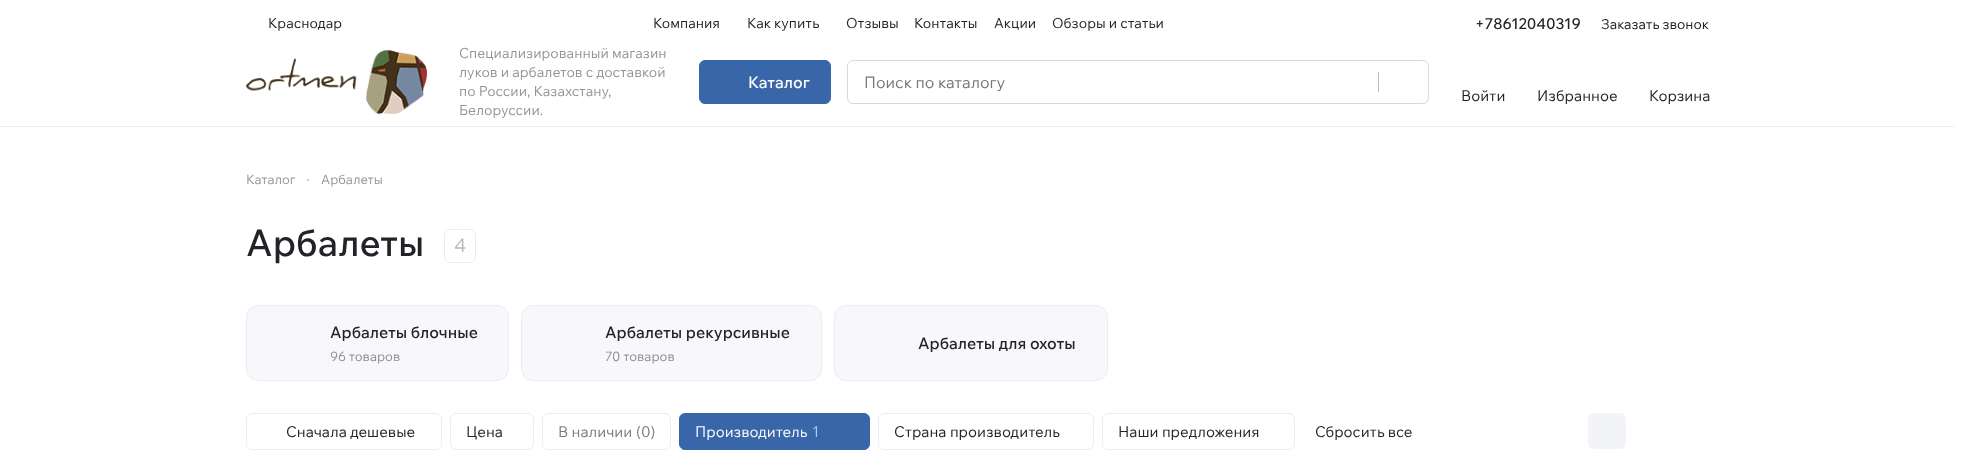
<?xml version="1.0" encoding="UTF-8"?>
<svg xmlns="http://www.w3.org/2000/svg" width="1961" height="452">
    <rect width="100%" height="100%" fill="#FFFFFF"/>
    <rect x="0" y="126" width="1955" height="1" fill="#EDEDED"/>
    <text x="268" y="28" font-family="Wix Madefor Text" font-size="14" fill="#222228">Краснодар</text>
    <text x="653" y="28" font-family="Wix Madefor Text" font-size="14" fill="#222228">Компания</text>
    <text x="747" y="28" font-family="Wix Madefor Text" font-size="14" fill="#222228">Как купить</text>
    <text x="846" y="28" font-family="Wix Madefor Text" font-size="14" fill="#222228">Отзывы</text>
    <text x="914" y="28" font-family="Wix Madefor Text" font-size="14" fill="#222228">Контакты</text>
    <text x="994" y="28" font-family="Wix Madefor Text" font-size="14" fill="#222228">Акции</text>
    <text x="1052" y="28" font-family="Wix Madefor Text" font-size="14" fill="#222228">Обзоры и статьи</text>
    <text x="1475" y="29" font-family="Wix Madefor Text" font-size="15" font-weight="500" fill="#222228">+78612040319</text>
    <text x="1601" y="29" font-family="Wix Madefor Text" font-size="13.75" fill="#222228">Заказать звонок</text>
    <image x="246" y="50" width="181" height="64" href="img_01.png"/>
    <text font-family="Wix Madefor Text" font-size="14" fill="#959598">
        <tspan x="459" y="58">Специализированный магазин</tspan>
        <tspan x="459" y="77">луков и арбалетов с доставкой</tspan>
        <tspan x="459" y="96">по России, Казахстану,</tspan>
        <tspan x="459" y="115">Белоруссии.</tspan>
    </text>
    <rect x="699.5" y="60.5" width="131" height="43" rx="5.5" fill="#3966A8" stroke="#3966A8"/>
    <text x="748" y="88" font-family="Wix Madefor Text" font-size="16" font-weight="500" fill="#FFFFFF">Каталог</text>
    <rect x="847.5" y="60.5" width="581" height="43" rx="5.5" fill="none" stroke="#D7D8DA"/>
    <text x="864" y="88" font-family="Wix Madefor Text" font-size="16" fill="#757575">Поиск по каталогу</text>
    <rect x="1378" y="72" width="1" height="20" fill="#BDBDBF"/>
    <text x="1461" y="101" font-family="Wix Madefor Text" font-size="15" fill="#222228">Войти</text>
    <text x="1537" y="101" font-family="Wix Madefor Text" font-size="15" fill="#222228">Избранное</text>
    <text x="1649" y="101" font-family="Wix Madefor Text" font-size="15" fill="#222228">Корзина</text>
    <text x="246" y="184" font-family="Wix Madefor Text" font-size="13" fill="#959598">Каталог</text>
    <circle cx="308" cy="180" r="1" fill="#B8B8B9"/>
    <text x="321" y="184" font-family="Wix Madefor Text" font-size="13" fill="#959598">Арбалеты</text>
    <text x="246" y="256" font-family="Wix Madefor Text" font-size="37" font-weight="500" fill="#222228">Арбалеты</text>
    <rect x="444.5" y="229.5" width="31" height="33" rx="5.5" fill="none" stroke="#EBECEF"/>
    <text x="454" y="252" font-family="Wix Madefor Text" font-size="19" fill="#B8B8B9">4</text>
    <rect x="246.5" y="305.5" width="262" height="75" rx="11.5" fill="#F8F8FC" stroke="#EBECEF"/>
    <text x="330" y="338" font-family="Wix Madefor Text" font-size="16" font-weight="500" fill="#222228">Арбалеты блочные</text>
    <text x="330" y="361" font-family="Wix Madefor Text" font-size="13" fill="#8D8D8D">96 товаров</text>
    <rect x="521.5" y="305.5" width="300" height="75" rx="11.5" fill="#F8F8FC" stroke="#EBECEF"/>
    <text x="605" y="338" font-family="Wix Madefor Text" font-size="16" font-weight="500" fill="#222228">Арбалеты рекурсивные</text>
    <text x="605" y="361" font-family="Wix Madefor Text" font-size="13" fill="#8D8D8D">70 товаров</text>
    <rect x="834.5" y="305.5" width="273" height="75" rx="11.5" fill="#F8F8FC" stroke="#EBECEF"/>
    <text x="918" y="349" font-family="Wix Madefor Text" font-size="16" font-weight="500" fill="#222228">Арбалеты для охоты</text>
    <rect x="246.5" y="413.5" width="195" height="36" rx="5.5" fill="none" stroke="#EBECEF"/>
    <text x="286" y="437" font-family="Wix Madefor Text" font-size="15" fill="#222228">Сначала дешевые</text>
    <rect x="450.5" y="413.5" width="83" height="36" rx="5.5" fill="none" stroke="#EBECEF"/>
    <text x="466" y="437" font-family="Wix Madefor Text" font-size="15" fill="#222228">Цена</text>
    <rect x="542.5" y="413.5" width="128" height="36" rx="5.5" fill="none" stroke="#EBECEF"/>
    <text x="558" y="437" font-family="Wix Madefor Text" font-size="15" fill="#7A7A7E">В наличии</text>
    <text x="636" y="437" font-family="Wix Madefor Text" font-size="15" fill="#7A7A7E">(0)</text>
    <rect x="679.5" y="413.5" width="190" height="36" rx="5.5" fill="#3966A8" stroke="#3966A8"/>
    <text x="695" y="437" font-family="Wix Madefor Text" font-size="15" fill="#FFFFFF">Производитель</text>
    <text x="812" y="437" font-family="Wix Madefor Text" font-size="15" fill="#B8C8E0">1</text>
    <rect x="878.5" y="413.5" width="215" height="36" rx="5.5" fill="none" stroke="#EBECEF"/>
    <text x="894" y="437" font-family="Wix Madefor Text" font-size="15" fill="#222228">Страна производитель</text>
    <rect x="1102.5" y="413.5" width="192" height="36" rx="5.5" fill="none" stroke="#EBECEF"/>
    <text x="1118" y="437" font-family="Wix Madefor Text" font-size="15" fill="#222228">Наши предложения</text>
    <text x="1315" y="437" font-family="Wix Madefor Text" font-size="15" fill="#222228">Сбросить все</text>
    <rect x="1588" y="413" width="38" height="36" rx="6" fill="#F3F4F7"/>
</svg>
